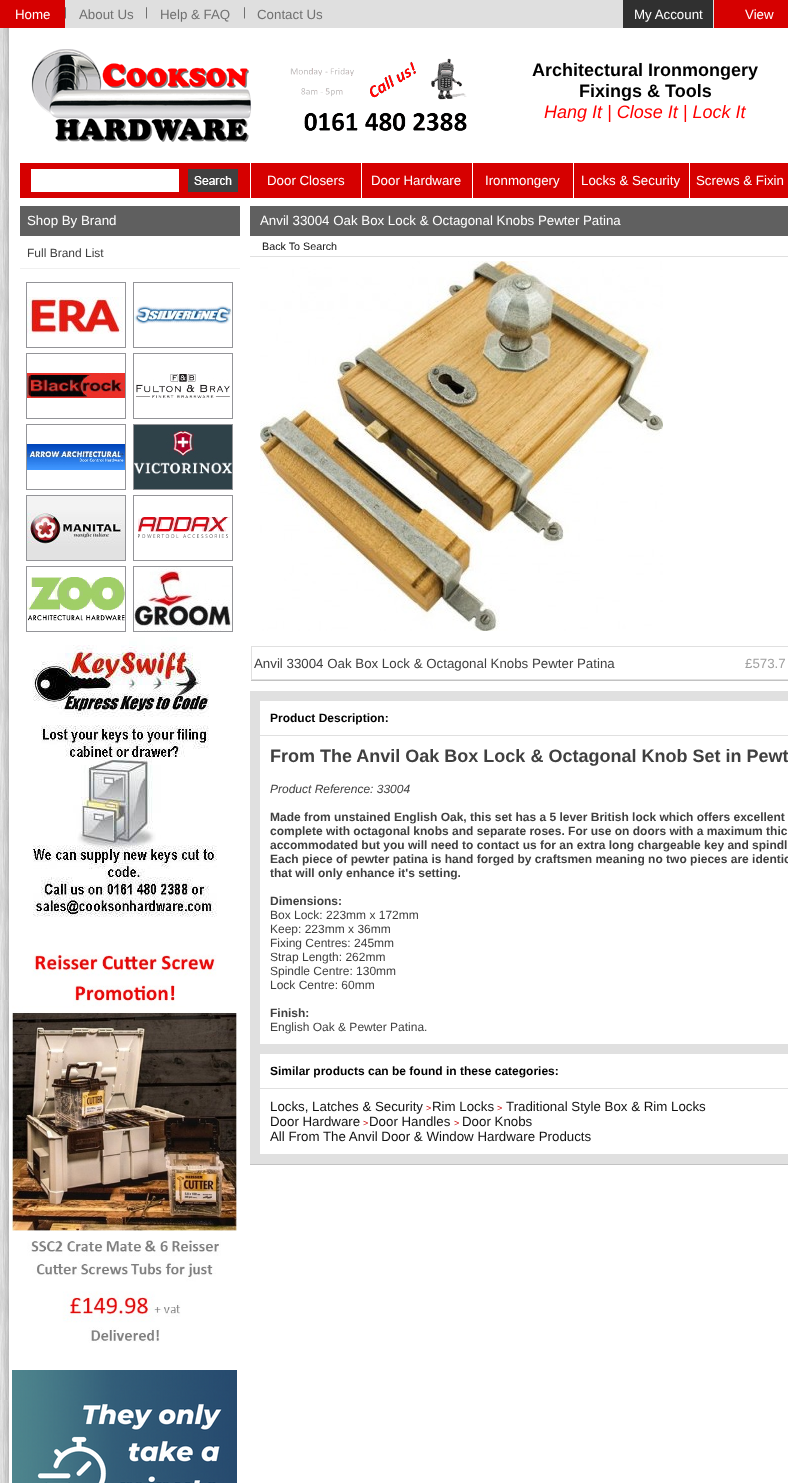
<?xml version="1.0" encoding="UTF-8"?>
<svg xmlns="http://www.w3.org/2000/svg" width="788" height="1483">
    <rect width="100%" height="100%" fill="#FFFFFF"/>
    <image x="0" y="28" width="9" height="1455" href="img_01.png"/>
    <rect x="65" y="0" width="649" height="28" fill="#DFDFDF"/>
    <rect x="0" y="0" width="65" height="28" fill="#D60000"/>
    <text x="15" y="19" font-family="Liberation Sans" font-size="13.3" fill="#FFFFFF">Home</text>
    <image x="65" y="7" width="1" height="12" href="img_02.png"/>
    <text x="79" y="19" font-family="Liberation Sans" font-size="13.3" fill="#707070">About Us</text>
    <image x="146" y="7" width="1" height="12" href="img_02.png"/>
    <text x="160" y="19" font-family="Liberation Sans" font-size="13.3" fill="#707070">Help &amp; FAQ</text>
    <image x="244" y="7" width="1" height="12" href="img_02.png"/>
    <text x="257" y="19" font-family="Liberation Sans" font-size="13.3" fill="#707070">Contact Us</text>
    <rect x="623" y="0" width="90" height="28" fill="#303030"/>
    <text x="634" y="19" font-family="Liberation Sans" font-size="13.3" fill="#FFFFFF">My Account</text>
    <rect x="714" y="0" width="74" height="28" fill="#D60000"/>
    <text x="745" y="19" font-family="Liberation Sans" font-size="13.3" fill="#FFFFFF">View</text>
    <image x="3" y="28" width="785" height="1455" href="img_03.png"/>
    <image x="31" y="49" width="221" height="93" href="img_04.png"/>
    <image x="290" y="58" width="177" height="73" href="img_05.png"/>
    <text x="532" y="76" font-family="Liberation Sans" font-size="18" font-weight="700" fill="#000000">Architectural Ironmongery</text>
    <text x="579" y="97" font-family="Liberation Sans" font-size="18" font-weight="700" fill="#000000">Fixings &amp; Tools</text>
    <text x="544" y="118" font-family="Liberation Sans" font-size="18" font-style="italic" fill="#FF0000">Hang It | Close It | Lock It</text>
    <rect x="20" y="163" width="230" height="35" fill="#D60000"/>
    <rect x="31" y="169" width="148" height="23" fill="#FFFFFF"/>
    <image x="188" y="169" width="50" height="23" href="img_06.png"/>
    <rect x="251" y="163" width="110" height="35" fill="#D60000"/>
    <text x="267" y="185" font-family="Liberation Sans" font-size="13.3" fill="#FFFFFF">Door Closers</text>
    <rect x="362" y="163" width="110" height="35" fill="#D60000"/>
    <text x="371" y="185" font-family="Liberation Sans" font-size="13.3" fill="#FFFFFF">Door Hardware</text>
    <rect x="473" y="163" width="100" height="35" fill="#D60000"/>
    <text x="485" y="185" font-family="Liberation Sans" font-size="13.3" fill="#FFFFFF">Ironmongery</text>
    <rect x="574" y="163" width="115" height="35" fill="#D60000"/>
    <text x="581" y="185" font-family="Liberation Sans" font-size="13.3" fill="#FFFFFF">Locks &amp; Security</text>
    <rect x="690" y="163" width="98" height="35" fill="#D60000"/>
    <text x="696" y="185" font-family="Liberation Sans" font-size="13.3" fill="#FFFFFF">Screws &amp; Fixin</text>
    <rect x="20" y="206" width="220" height="30" fill="#5F5F5F"/>
    <text x="27" y="225" font-family="Liberation Sans" font-size="13.3" fill="#FFFFFF">Shop By Brand</text>
    <rect x="20" y="268" width="220" height="1" fill="#F0F0F0"/>
    <text x="27" y="257" font-family="Liberation Sans" font-size="12" fill="#404040">Full Brand List</text>
    <rect x="26.5" y="282.5" width="99" height="65" fill="none" stroke="#939498"/>
    <image x="27" y="297" width="96" height="37" href="img_07.png"/>
    <rect x="133.5" y="282.5" width="99" height="65" fill="none" stroke="#939498"/>
    <image x="134" y="305" width="98" height="19" href="img_08.png"/>
    <rect x="26.5" y="353.5" width="99" height="65" fill="none" stroke="#939498"/>
    <image x="27" y="373" width="98" height="25" href="img_09.png"/>
    <rect x="133.5" y="353.5" width="99" height="65" fill="none" stroke="#939498"/>
    <image x="136" y="374" width="94" height="24" href="img_10.png"/>
    <rect x="26.5" y="424.5" width="99" height="65" fill="none" stroke="#939498"/>
    <image x="27" y="444" width="98" height="26" href="img_11.png"/>
    <rect x="133.5" y="424.5" width="99" height="65" fill="none" stroke="#939498"/>
    <image x="134" y="425" width="98" height="64" href="img_12.png"/>
    <rect x="26.5" y="495.5" width="99" height="65" fill="none" stroke="#939498"/>
    <image x="27" y="496" width="98" height="64" href="img_13.png"/>
    <rect x="133.5" y="495.5" width="99" height="65" fill="none" stroke="#939498"/>
    <image x="138" y="517" width="92" height="21" href="img_14.png"/>
    <rect x="26.5" y="566.5" width="99" height="65" fill="none" stroke="#939498"/>
    <image x="27" y="577" width="98" height="44" href="img_15.png"/>
    <rect x="133.5" y="566.5" width="99" height="65" fill="none" stroke="#939498"/>
    <image x="134" y="567" width="98" height="64" href="img_16.png"/>
    <image x="32" y="637" width="185" height="280" href="img_17.png"/>
    <image x="12" y="954" width="225" height="389" href="img_18.png"/>
    <image x="12" y="1370" width="225" height="113" href="img_19.png"/>
    <rect x="250" y="206" width="538" height="30" fill="#606060"/>
    <text x="260" y="225" font-family="Liberation Sans" font-size="13.3" fill="#FFFFFF">Anvil 33004 Oak Box Lock &amp; Octagonal Knobs Pewter Patina</text>
    <rect x="250" y="256" width="538" height="1" fill="#E0E0E0"/>
    <text x="262" y="250" font-family="Liberation Sans" font-size="10.75" fill="#111111">Back To Search</text>
    <rect x="250" y="1164" width="538" height="1" fill="#C2C2C2"/>
    <image x="260" y="261" width="403" height="370" href="img_20.png"/>
    <rect x="250" y="680" width="538" height="1" fill="#C2C2C2"/>
    <rect x="250" y="680" width="1" height="1" fill="#FFFFFF"/>
    <rect x="251" y="646" width="537" height="1" fill="#E0E0E0"/>
    <rect x="251" y="679" width="537" height="1" fill="#E0E0E0"/>
    <rect x="251" y="646" width="1" height="34" fill="#E0E0E0"/>
    <text x="254" y="668" font-family="Liberation Sans" font-size="13.3" fill="#404040">Anvil 33004 Oak Box Lock &amp; Octagonal Knobs Pewter Patina</text>
    <text x="745" y="668" font-family="Liberation Sans" font-size="13.3" fill="#A0A0A0">£573.7</text>
    <rect x="260" y="691" width="528" height="10" fill="#E0E0E0"/>
    <rect x="260" y="735" width="528" height="1" fill="#E0E0E0"/>
    <rect x="250" y="691" width="10" height="473" fill="#E0E0E0"/>
    <text x="270" y="722" font-family="Liberation Sans" font-size="12" font-weight="700" fill="#000000">Product Description:</text>
    <rect x="260" y="1044" width="528" height="10" fill="#E0E0E0"/>
    <text x="270" y="762" font-family="Liberation Sans" font-size="18" font-weight="700" fill="#404040">From The Anvil Oak Box Lock &amp; Octagonal Knob Set in Pewt</text>
    <text x="270" y="793" font-family="Liberation Sans" font-size="12" font-style="italic" fill="#404040">Product Reference: 33004</text>
    <text font-family="Liberation Sans" font-size="12" font-weight="700" fill="#404040">
        <tspan x="270" y="821">Made from unstained English Oak, this set has a 5 lever British lock which offers excellent</tspan>
        <tspan x="270" y="835">complete with octagonal knobs and separate roses. For use on doors with a maximum thic</tspan>
        <tspan x="270" y="849">accommodated but you will need to contact us for an extra long chargeable key and spindl</tspan>
        <tspan x="270" y="863">Each piece of pewter patina is hand forged by craftsmen meaning no two pieces are identic</tspan>
        <tspan x="270" y="877">that will only enhance it's setting.</tspan>
    </text>
    <text x="270" y="905" font-family="Liberation Sans" font-size="12" font-weight="700" fill="#404040">Dimensions:</text>
    <text font-family="Liberation Sans" font-size="12" fill="#404040">
        <tspan x="270" y="919">Box Lock: 223mm x 172mm</tspan>
        <tspan x="270" y="933">Keep: 223mm x 36mm</tspan>
        <tspan x="270" y="947">Fixing Centres: 245mm</tspan>
        <tspan x="270" y="961">Strap Length: 262mm</tspan>
        <tspan x="270" y="975">Spindle Centre: 130mm</tspan>
        <tspan x="270" y="989">Lock Centre: 60mm</tspan>
    </text>
    <text x="270" y="1017" font-family="Liberation Sans" font-size="12" font-weight="700" fill="#404040">Finish:</text>
    <text x="270" y="1031" font-family="Liberation Sans" font-size="12" fill="#404040">English Oak &amp; Pewter Patina.</text>
    <rect x="260" y="1088" width="528" height="1" fill="#E0E0E0"/>
    <text x="270" y="1075" font-family="Liberation Sans" font-size="12" font-weight="700" fill="#000000">Similar products can be found in these categories:</text>
    <rect x="260" y="1154" width="528" height="10" fill="#E0E0E0"/>
    <text x="270" y="1111" font-family="Liberation Sans" font-size="13.3" fill="#111111">Locks, Latches &amp; Security</text>
    <text x="426" y="1111" font-family="Liberation Sans" font-size="9" fill="#C60000">&gt;</text>
    <text x="432" y="1111" font-family="Liberation Sans" font-size="13.3" fill="#111111">Rim Locks</text>
    <text x="497" y="1111" font-family="Liberation Sans" font-size="9" fill="#C60000">&gt;</text>
    <text x="506" y="1111" font-family="Liberation Sans" font-size="13.3" fill="#111111">Traditional Style Box &amp; Rim Locks</text>
    <text x="270" y="1126" font-family="Liberation Sans" font-size="13.3" fill="#111111">Door Hardware</text>
    <text x="363" y="1126" font-family="Liberation Sans" font-size="9" fill="#C60000">&gt;</text>
    <text x="369" y="1126" font-family="Liberation Sans" font-size="13.3" fill="#111111">Door Handles</text>
    <text x="454" y="1126" font-family="Liberation Sans" font-size="9" fill="#C60000">&gt;</text>
    <text x="462" y="1126" font-family="Liberation Sans" font-size="13.3" fill="#111111">Door Knobs</text>
    <text x="270" y="1141" font-family="Liberation Sans" font-size="13.3" fill="#111111">All From The Anvil Door &amp; Window Hardware Products</text>
</svg>
